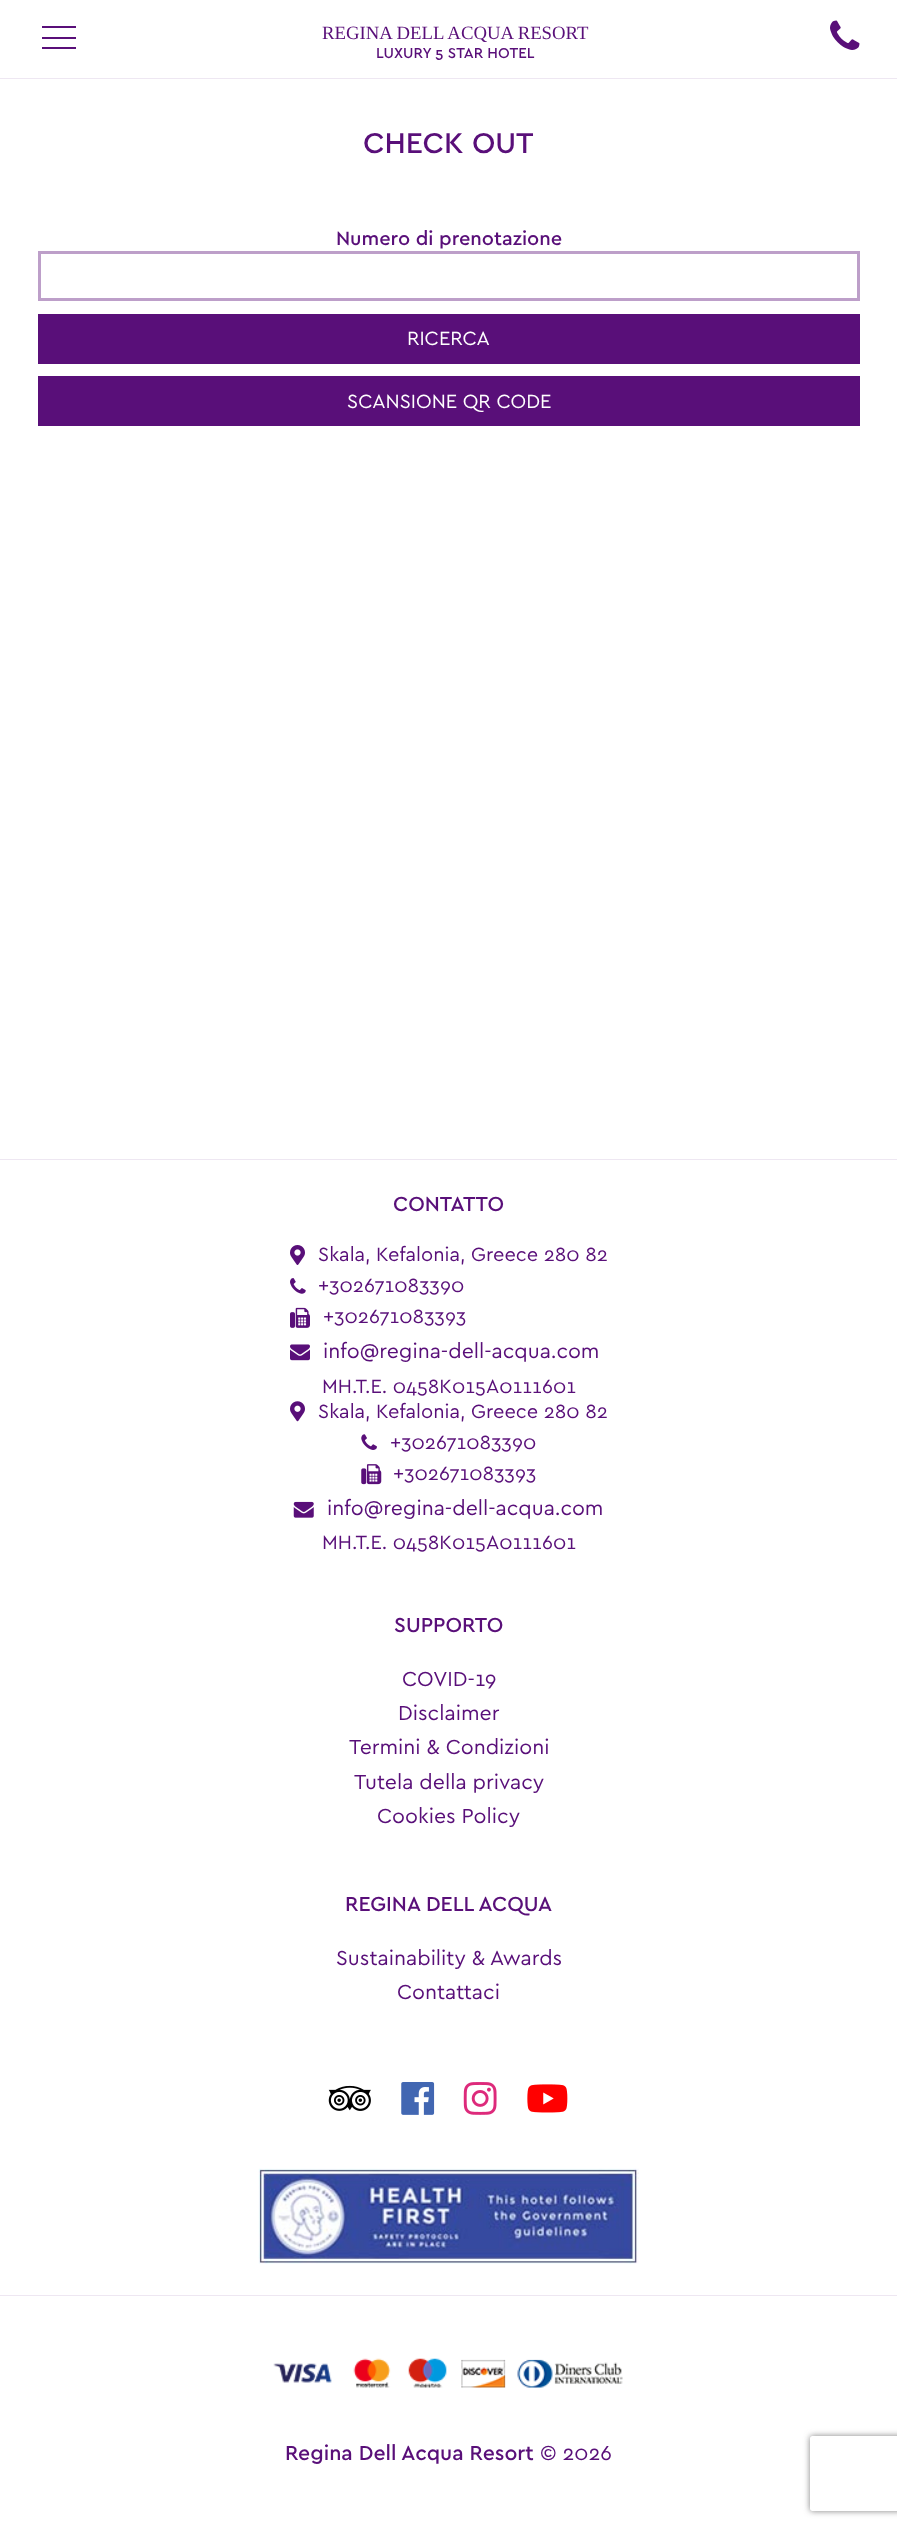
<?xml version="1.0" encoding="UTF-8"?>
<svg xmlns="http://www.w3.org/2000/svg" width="897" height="2528">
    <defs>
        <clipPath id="clip1"><path d="M 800 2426 H 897 V 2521 H 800 Z M 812.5 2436 H 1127.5 C 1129 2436 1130 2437 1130 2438.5 V 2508.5 C 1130 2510 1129 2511 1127.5 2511 H 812.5 C 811 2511 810 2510 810 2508.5 V 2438.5 C 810 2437 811 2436 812.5 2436 Z" clip-rule="evenodd"/></clipPath>
        <filter id="blur1" x="-50%" y="-200%" width="200%" height="500%"><feGaussianBlur stdDeviation="3"/></filter>
    </defs>
    <rect width="100%" height="100%" fill="#FFFFFF"/>
    <rect x="0" y="78" width="897" height="1" fill="#EEE7F2"/>
    <rect x="42" y="26" width="34" height="2" fill="#590F79"/>
    <rect x="42" y="37" width="34" height="2" fill="#590F79"/>
    <rect x="42" y="47" width="34" height="2" fill="#590F79"/>
    <text x="322" y="39" font-family="Liberation Serif" font-size="18.75" fill="#590F79">REGINA DELL ACQUA RESORT</text>
    <text x="376" y="58" font-family="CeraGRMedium" font-size="15" font-weight="500" fill="#590F79">LUXURY 5 STAR HOTEL</text>
    <image x="830" y="20" width="30" height="30" href="img_01.png"/>
    <text x="363" y="153" font-family="CeraGRMedium" font-size="30" font-weight="500" fill="#590F79">CHECK OUT</text>
    <text x="336" y="245" font-family="CeraGRMedium" font-size="20" font-weight="500" fill="#590F79">Numero di prenotazione</text>
    <rect x="39.5" y="252.5" width="819" height="47" fill="none" stroke="#BD9FC9" stroke-width="3"/>
    <rect x="38" y="314" width="822" height="50" fill="#590F79"/>
    <text x="407" y="345" font-family="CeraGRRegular" font-size="20" fill="#FFFFFF">RICERCA</text>
    <rect x="38" y="376" width="822" height="50" fill="#590F79"/>
    <text x="347" y="408" font-family="CeraGRRegular" font-size="20" fill="#FFFFFF">SCANSIONE QR CODE</text>
    <rect x="0" y="1159" width="897" height="1" fill="#EEE7F2"/>
    <text x="393" y="1211" font-family="CeraGRMedium" font-size="21.25" font-weight="500" fill="#590F79">CONTATTO</text>
    <image x="290" y="1245" width="15" height="20" href="img_02.png"/>
    <text x="318" y="1261" font-family="CeraGRRegular" font-size="20" fill="#590F79">Skala, Kefalonia, Greece 280 82</text>
    <image x="290" y="1278" width="16" height="16" href="img_03.png"/>
    <text x="318" y="1292" font-family="CeraGRRegular" font-size="20" fill="#590F79">+302671083390</text>
    <image x="290" y="1307" width="20" height="21" href="img_04.png"/>
    <text x="323" y="1323" font-family="CeraGRRegular" font-size="20" fill="#590F79">+302671083393</text>
    <image x="290" y="1344" width="20" height="17" href="img_05.png"/>
    <text x="323" y="1358" font-family="CeraGRRegular" font-size="21.25" fill="#590F79">info@regina-dell-acqua.com</text>
    <text x="322" y="1393" font-family="CeraGRRegular" font-size="20" fill="#590F79">MH.T.E. 0458K015A0111601</text>
    <image x="290" y="1401" width="15" height="21" href="img_06.png"/>
    <text x="318" y="1418" font-family="CeraGRRegular" font-size="20" fill="#590F79">Skala, Kefalonia, Greece 280 82</text>
    <image x="361" y="1434" width="16" height="16" href="img_07.png"/>
    <text x="390" y="1449" font-family="CeraGRRegular" font-size="20" fill="#590F79">+302671083390</text>
    <image x="361" y="1464" width="21" height="21" href="img_08.png"/>
    <text x="393" y="1480" font-family="CeraGRRegular" font-size="20" fill="#590F79">+302671083393</text>
    <image x="293" y="1501" width="21" height="17" href="img_09.png"/>
    <text x="327" y="1515" font-family="CeraGRRegular" font-size="21.25" fill="#590F79">info@regina-dell-acqua.com</text>
    <text x="322" y="1549" font-family="CeraGRRegular" font-size="20" fill="#590F79">MH.T.E. 0458K015A0111601</text>
    <text x="394" y="1632" font-family="CeraGRMedium" font-size="21.25" font-weight="500" fill="#590F79">SUPPORTO</text>
    <text x="402" y="1686" font-family="CeraGRRegular" font-size="21.25" fill="#590F79">COVID-19</text>
    <text x="398" y="1720" font-family="CeraGRRegular" font-size="21.25" fill="#590F79">Disclaimer</text>
    <text x="349" y="1754" font-family="CeraGRRegular" font-size="21.25" fill="#590F79">Termini &amp; Condizioni</text>
    <text x="354" y="1789" font-family="CeraGRRegular" font-size="21.25" fill="#590F79">Tutela della privacy</text>
    <text x="377" y="1823" font-family="CeraGRRegular" font-size="21.25" fill="#590F79">Cookies Policy</text>
    <text x="345" y="1911" font-family="CeraGRMedium" font-size="21.25" font-weight="500" fill="#590F79">REGINA DELL ACQUA</text>
    <text x="336" y="1965" font-family="CeraGRRegular" font-size="21.25" fill="#590F79">Sustainability &amp; Awards</text>
    <text x="397" y="1999" font-family="CeraGRRegular" font-size="21.25" fill="#590F79">Contattaci</text>
    <image x="328" y="2085" width="43" height="26" href="img_10.png"/>
    <image x="401" y="2082" width="34" height="33" href="img_11.png"/>
    <image x="463" y="2082" width="34" height="33" href="img_12.png"/>
    <image x="527" y="2084" width="41" height="29" href="img_13.png"/>
    <image x="258" y="2168" width="381" height="96" href="img_14.png"/>
    <rect x="0" y="2295" width="897" height="1" fill="#EEE7F2"/>
    <image x="273" y="2358" width="350" height="30" href="img_15.png"/>
    <text x="285" y="2460" font-family="CeraGRMedium" font-size="21.25" font-weight="500" fill="#590F79">Regina Dell Acqua Resort</text>
    <text x="540" y="2460" font-family="CeraGRRegular" font-size="21.25" fill="#590F79">© 2026</text>
    <g clip-path="url(#clip1)">
        <rect x="810" y="2436" width="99" height="75" rx="2.5" fill="#808080" filter="url(#blur1)"/>
    </g>
</svg>
